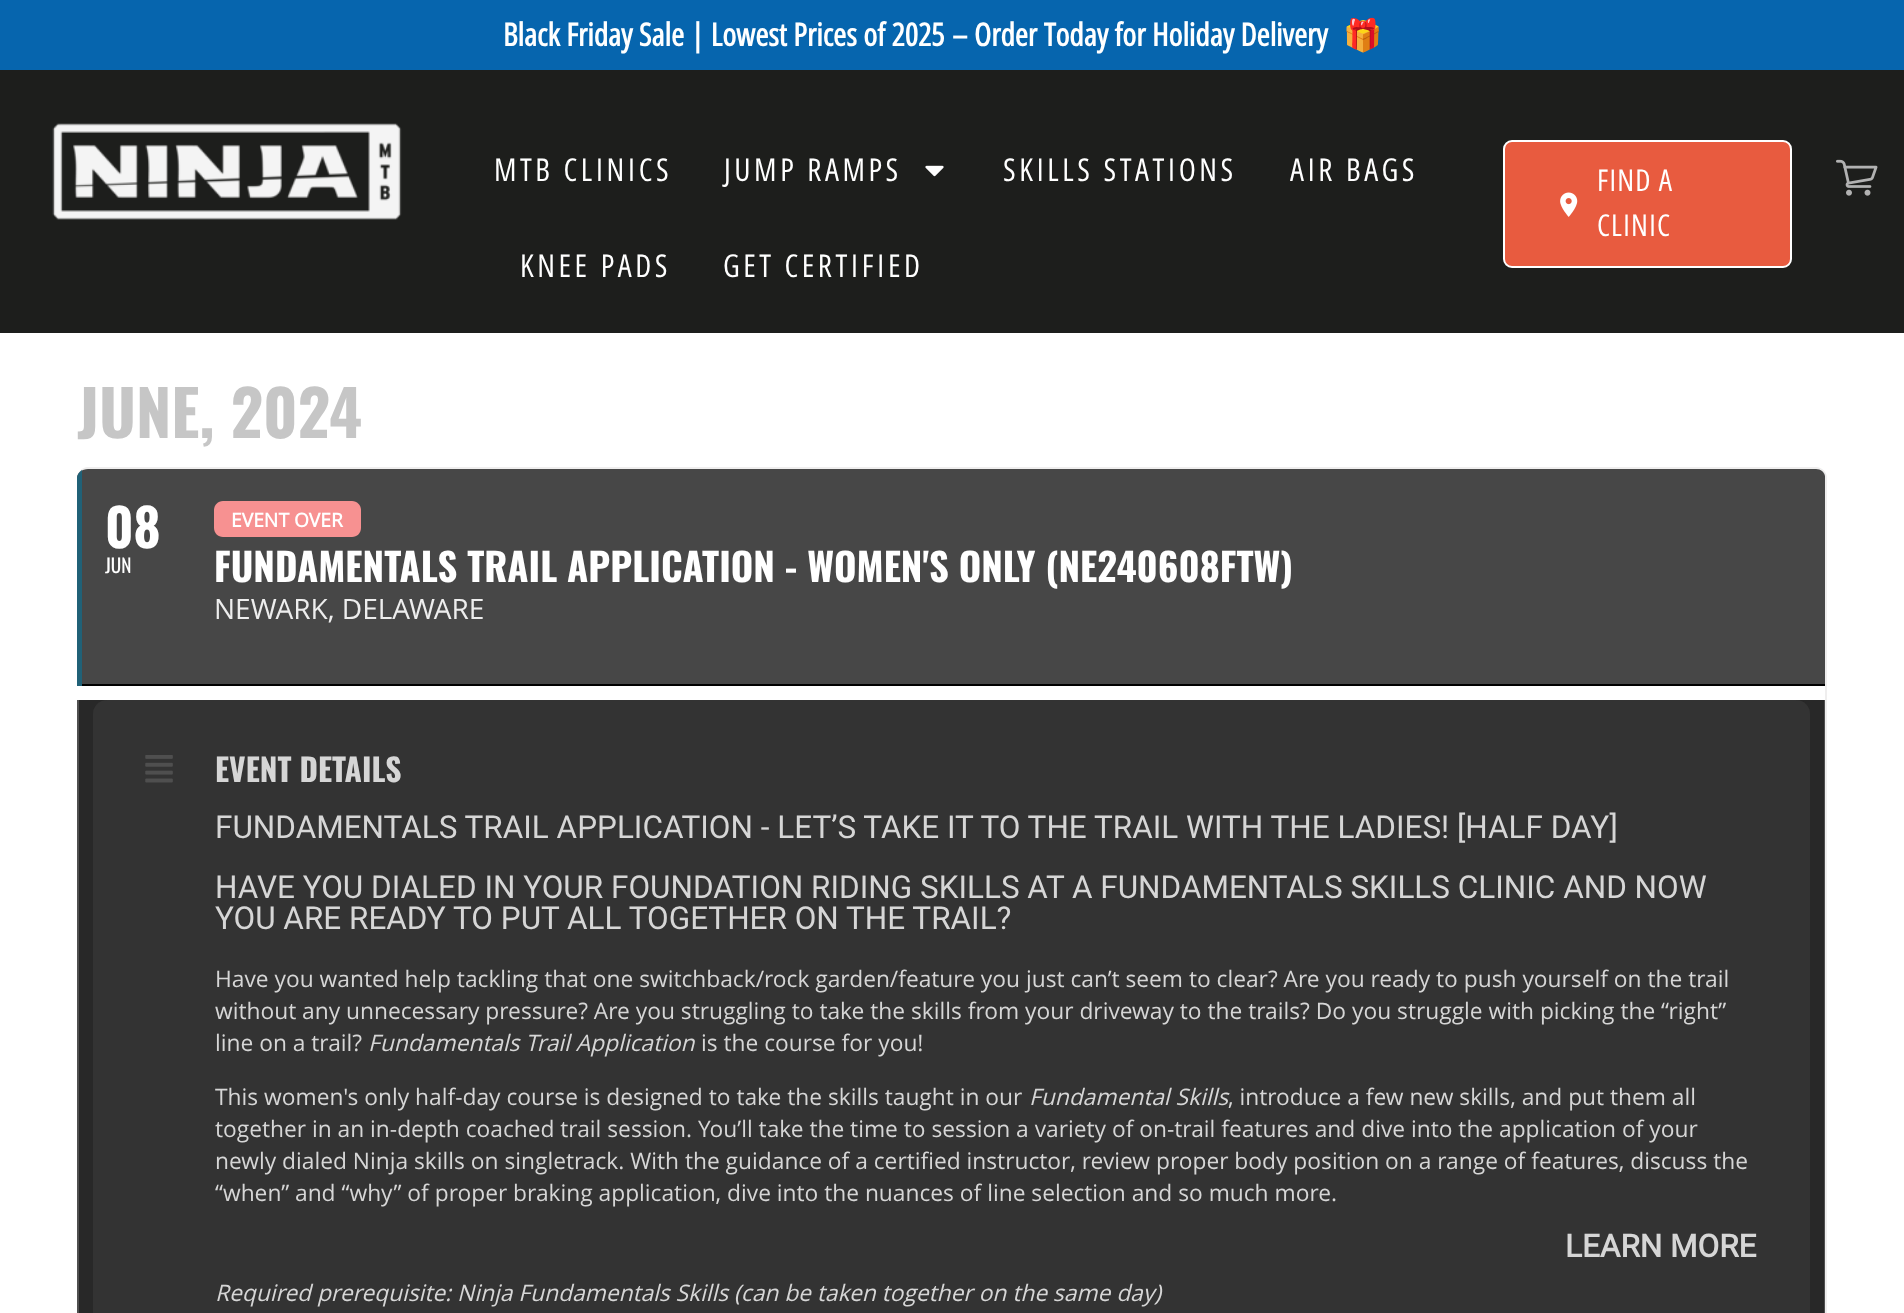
<?xml version="1.0" encoding="UTF-8"?>
<svg xmlns="http://www.w3.org/2000/svg" width="1904" height="1313">
    <rect width="100%" height="100%" fill="#FFFFFF"/>
    <rect x="0" y="0" width="1904" height="70" fill="#0665AE"/>
    <text x="503" y="46" font-family="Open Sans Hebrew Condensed" font-size="31.5" font-weight="700" fill="#FFFFFF">Black Friday Sale | Lowest Prices of 2025</text>
    <text x="952" y="46" font-family="Open Sans Hebrew Condensed" font-size="31.5" font-weight="700" fill="#FFFFFF">– Order Today for Holiday Delivery</text>
    <text x="1343" y="46" font-family="Noto Color Emoji" font-size="31.5" font-weight="700" fill="#FFFFFF">🎁</text>
    <rect x="0" y="70" width="1904" height="263" fill="#1D1E1C"/>
    <image x="52" y="123" width="350" height="97" href="img_01.png"/>
    <text x="494" y="181" font-family="Open Sans Hebrew Condensed" font-size="31.5" letter-spacing="3.5" fill="#FFFFFF">MTB CLINICS</text>
    <text x="724" y="181" font-family="Open Sans Hebrew Condensed" font-size="31.5" letter-spacing="3.5" fill="#FFFFFF">JUMP RAMPS</text>
    <image x="925" y="165" width="19" height="12" href="img_02.png"/>
    <text x="1003" y="181" font-family="Open Sans Hebrew Condensed" font-size="31.5" letter-spacing="3.5" fill="#FFFFFF">SKILLS STATIONS</text>
    <text x="1290" y="181" font-family="Open Sans Hebrew Condensed" font-size="31.5" letter-spacing="3.5" fill="#FFFFFF">AIR BAGS</text>
    <text x="520" y="277" font-family="Open Sans Hebrew Condensed" font-size="31.5" letter-spacing="3.5" fill="#FFFFFF">KNEE PADS</text>
    <text x="723" y="277" font-family="Open Sans Hebrew Condensed" font-size="31.5" letter-spacing="3.5" fill="#FFFFFF">GET CERTIFIED</text>
    <rect x="1504" y="141" width="287" height="126" rx="8" fill="#E85B3F" stroke="#FFFFFF" stroke-width="2"/>
    <text x="1597" y="191" font-family="Open Sans Hebrew Condensed" font-size="30" letter-spacing="1" fill="#FFFFFF">FIND A</text>
    <image x="1560" y="192" width="18" height="25" href="img_03.png"/>
    <text x="1597" y="236" font-family="Open Sans Hebrew Condensed" font-size="30" letter-spacing="1" fill="#FFFFFF">CLINIC</text>
    <image x="1836" y="159" width="42" height="37" href="img_04.png"/>
    <text x="77" y="438" font-family="Oswald" font-size="63" font-weight="700" fill="#C6C6C6">JUNE, 2024</text>
    <path d="M 88 467 H 1816 C 1822 467 1827 472 1827 478 V 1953 C 1827 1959 1822 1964 1816 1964 H 88 C 82 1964 77 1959 77 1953 V 478 C 77 472 82 467 88 467 Z M 88 469 H 1816 C 1821 469 1825 473 1825 478 V 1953 C 1825 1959 1821 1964 1816 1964 H 88 C 82 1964 77 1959 77 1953 V 478 C 77 473 82 469 88 469 Z" fill="#EFEEEE" fill-rule="evenodd"/>
    <path d="M 88 469 C 82 469 77 473 77 478 V 686 H 1825 V 476 C 1824 472 1821 469 1816 469 Z" fill="#474747"/>
    <path d="M 82 470 C 79 472 77 475 77 478 V 686 H 82 Z" fill="#206177"/>
    <text x="105" y="548" font-family="Oswald" font-size="52" font-weight="700" fill="#FFFFFF">08</text>
    <text x="105" y="573" font-family="Oswald" font-size="19.25" fill="#FFFFFF">JUN</text>
    <path d="M 223 501 H 352 C 357 501 361 505 361 510 V 528 C 361 533 357 537 352 537 H 223 C 218 537 214 533 214 528 V 510 C 214 505 218 501 223 501 Z" fill="#F79191"/>
    <text x="231" y="527" font-family="Open Sans" font-size="19.25" font-weight="700" fill="#FFFFFF">EVENT OVER</text>
    <text x="214" y="582" font-family="Oswald" font-size="38.5" font-weight="700" fill="#FFFFFF">FUNDAMENTALS TRAIL APPLICATION - WOMEN'S ONLY (NE240608FTW)</text>
    <text x="214" y="619" font-family="Open Sans" font-size="28" fill="#EDEDED">NEWARK, DELAWARE</text>
    <rect x="82" y="684" width="1743" height="2" fill="#000000"/>
    <path d="M 77 700 V 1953 C 77 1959 82 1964 88 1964 H 1816 C 1821 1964 1824 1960 1825 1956 V 700 Z" fill="#282828"/>
    <path d="M 1824 700 H 1825 V 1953 L 1824 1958 Z" fill="#4F4F4F"/>
    <path d="M 77 700 V 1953 C 77 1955 78 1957 79 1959 V 700 Z" fill="#4F4F4F"/>
    <rect x="93" y="700" width="1717" height="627" rx="14" fill="#333333"/>
    <image x="145" y="755" width="28" height="28" href="img_05.png"/>
    <text x="215" y="782" font-family="Oswald" font-size="31.5" font-weight="700" fill="#D6D6D6">EVENT DETAILS</text>
    <text font-family="Roboto" font-size="31.5" fill="#D6D6D6">
        <tspan x="215" y="838">FUNDAMENTALS TRAIL APPLICATION - LET’S TAKE IT TO THE TRAIL WITH THE LADIES! [HALF DAY]</tspan>
        <tspan x="215" y="898">HAVE YOU DIALED IN YOUR FOUNDATION RIDING SKILLS AT A FUNDAMENTALS SKILLS CLINIC AND NOW</tspan>
        <tspan x="215" y="929">YOU ARE READY TO PUT ALL TOGETHER ON THE TRAIL?</tspan>
    </text>
    <text font-family="Open Sans" font-size="22.75" fill="#D6D6D6">
        <tspan x="215" y="987">Have you wanted help tackling that one switchback/rock garden/feature you just can’t seem to clear? Are you ready to push yourself on the trail</tspan>
        <tspan x="215" y="1019">without any unnecessary pressure? Are you struggling to take the skills from your driveway to the trails? Do you struggle with picking the “right”</tspan>
        <tspan x="215" y="1051">line on a trail?</tspan>
    </text>
    <text x="368" y="1051" font-family="Open Sans" font-size="22.75" font-style="italic" fill="#D6D6D6">Fundamentals Trail Application</text>
    <text x="701" y="1051" font-family="Open Sans" font-size="22.75" fill="#D6D6D6">is the course for you!</text>
    <text x="215" y="1105" font-family="Open Sans" font-size="22.75" fill="#D6D6D6">This women's only half-day course is designed to take the skills taught in our</text>
    <text x="1029" y="1105" font-family="Open Sans" font-size="22.75" font-style="italic" fill="#D6D6D6">Fundamental Skills</text>
    <text x="1228" y="1105" font-family="Open Sans" font-size="22.75" fill="#D6D6D6">, introduce a few new skills, and put them all</text>
    <text font-family="Open Sans" font-size="22.75" fill="#D6D6D6">
        <tspan x="215" y="1137">together in an in-depth coached trail session. You’ll take the time to session a variety of on-trail features and dive into the application of your</tspan>
        <tspan x="215" y="1169">newly dialed Ninja skills on singletrack. With the guidance of a certified instructor, review proper body position on a range of features, discuss the</tspan>
        <tspan x="215" y="1201">“when” and “why” of proper braking application, dive into the nuances of line selection and so much more.</tspan>
    </text>
    <text x="1565" y="1257" font-family="Roboto" font-size="31.5" font-weight="700" fill="#D6D6D6">LEARN MORE</text>
    <text x="215" y="1301" font-family="Open Sans" font-size="22.75" font-style="italic" fill="#D6D6D6">Required prerequisite: Ninja Fundamentals Skills (can be taken together on the same day)</text>
</svg>
